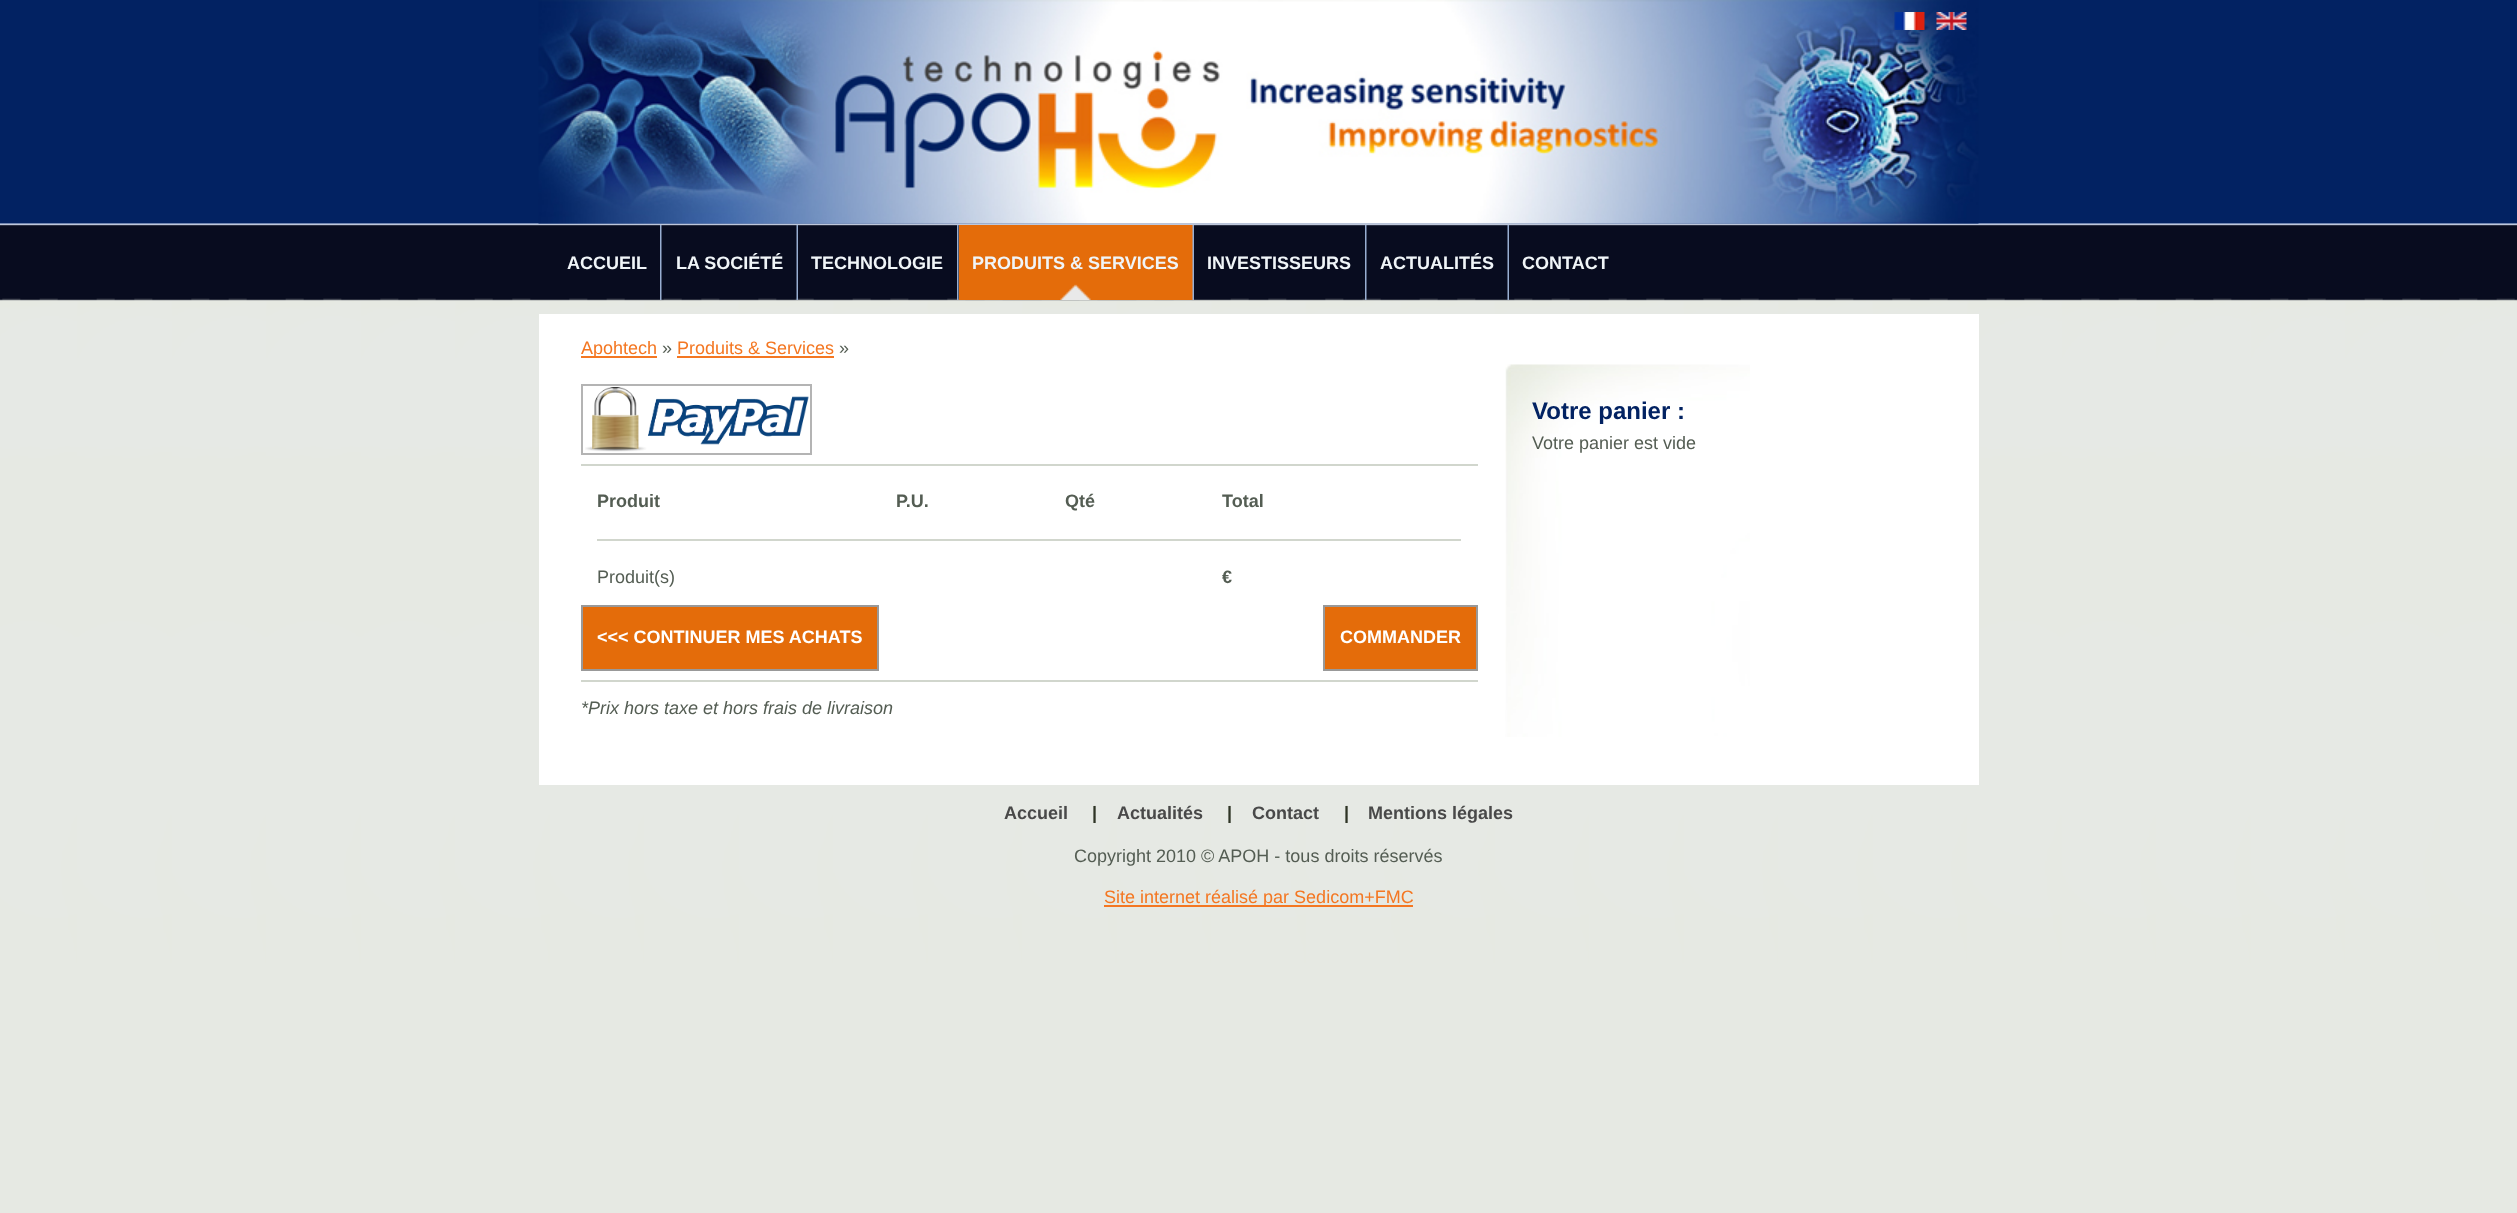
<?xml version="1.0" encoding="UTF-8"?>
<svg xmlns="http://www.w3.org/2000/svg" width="2517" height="1213">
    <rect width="100%" height="100%" fill="#FFFFFF"/>
    <image x="0" y="0" width="2517" height="1213" href="img_01.png"/>
    <image x="538" y="0" width="1441" height="224" href="img_02.png"/>
    <image x="1894" y="12" width="31" height="18" href="img_03.png"/>
    <image x="1936" y="12" width="31" height="18" href="img_04.png"/>
    <text x="567" y="269" font-family="Liberation Sans" font-size="18" font-weight="700" fill="#F0F5F8">ACCUEIL</text>
    <image x="660" y="225" width="2" height="75" href="img_05.png"/>
    <text x="676" y="269" font-family="Liberation Sans" font-size="18" font-weight="700" fill="#F0F5F8">LA SOCIÉTÉ</text>
    <image x="796" y="225" width="2" height="75" href="img_06.png"/>
    <text x="811" y="269" font-family="Liberation Sans" font-size="18" font-weight="700" fill="#F0F5F8">TECHNOLOGIE</text>
    <image x="957" y="225" width="2" height="75" href="img_07.png"/>
    <rect x="959" y="225" width="234" height="75" fill="#E46C0A"/>
    <image x="1060" y="284" width="31" height="16" href="img_08.png"/>
    <text x="972" y="269" font-family="Liberation Sans" font-size="18" font-weight="700" fill="#F0F5F8">PRODUITS &amp; SERVICES</text>
    <image x="1192" y="225" width="2" height="75" href="img_09.png"/>
    <text x="1207" y="269" font-family="Liberation Sans" font-size="18" font-weight="700" fill="#F0F5F8">INVESTISSEURS</text>
    <image x="1365" y="225" width="2" height="75" href="img_07.png"/>
    <text x="1380" y="269" font-family="Liberation Sans" font-size="18" font-weight="700" fill="#F0F5F8">ACTUALITÉS</text>
    <image x="1507" y="225" width="2" height="75" href="img_10.png"/>
    <text x="1522" y="269" font-family="Liberation Sans" font-size="18" font-weight="700" fill="#F0F5F8">CONTACT</text>
    <rect x="539" y="314" width="1440" height="471" fill="#FFFFFF"/>
    <rect x="581" y="356" width="76" height="2" fill="#F47722"/>
    <text x="581" y="354" font-family="Liberation Sans" font-size="18" fill="#F47722">Apohtech</text>
    <text x="662" y="354" font-family="Liberation Sans" font-size="18" fill="#545D53">»</text>
    <text x="677" y="354" font-family="Liberation Sans" font-size="18" fill="#F47722">Produits &amp; Services</text>
    <rect x="677" y="356" width="157" height="2" fill="#F47722"/>
    <text x="839" y="354" font-family="Liberation Sans" font-size="18" fill="#545D53">»</text>
    <image x="1505" y="364" width="245" height="373" href="img_11.png"/>
    <text x="1532" y="419" font-family="Liberation Sans" font-size="24" font-weight="700" fill="#022262">Votre panier :</text>
    <text x="1532" y="449" font-family="Liberation Sans" font-size="18" fill="#545D53">Votre panier est vide</text>
    <rect x="582" y="385" width="229" height="69" fill="none" stroke="#B4B4B4" stroke-width="2"/>
    <image x="585" y="387" width="224" height="65" href="img_12.png"/>
    <rect x="581" y="464" width="897" height="2" fill="#D1D6CD"/>
    <text x="597" y="507" font-family="Liberation Sans" font-size="18" font-weight="700" fill="#545D53">Produit</text>
    <text x="896" y="507" font-family="Liberation Sans" font-size="18" font-weight="700" fill="#545D53">P.U.</text>
    <text x="1065" y="507" font-family="Liberation Sans" font-size="18" font-weight="700" fill="#545D53">Qté</text>
    <text x="1222" y="507" font-family="Liberation Sans" font-size="18" font-weight="700" fill="#545D53">Total</text>
    <rect x="597" y="539" width="864" height="2" fill="#D1D6CD"/>
    <text x="597" y="583" font-family="Liberation Sans" font-size="18" fill="#545D53">Produit(s)</text>
    <text x="1222" y="583" font-family="Liberation Sans" font-size="18" font-weight="700" fill="#545D53">€</text>
    <rect x="582" y="606" width="296" height="64" fill="#E46C0A" stroke="#999999" stroke-width="2"/>
    <text x="597" y="643" font-family="Liberation Sans" font-size="18" font-weight="700" fill="#FFFFFF">&lt;&lt;&lt; CONTINUER MES ACHATS</text>
    <rect x="1324" y="606" width="153" height="64" fill="#E46C0A" stroke="#999999" stroke-width="2"/>
    <text x="1340" y="643" font-family="Liberation Sans" font-size="18" font-weight="700" fill="#FFFFFF">COMMANDER</text>
    <rect x="581" y="680" width="897" height="2" fill="#D1D6CD"/>
    <text x="581" y="714" font-family="Liberation Sans" font-size="18" font-style="italic" fill="#545D53">*Prix hors taxe et hors frais de livraison</text>
    <text x="1004" y="819" font-family="Liberation Sans" font-size="18" font-weight="700" fill="#494949">Accueil</text>
    <text x="1092" y="819" font-family="Liberation Sans" font-size="18" font-weight="700" fill="#2F3526">|</text>
    <text x="1117" y="819" font-family="Liberation Sans" font-size="18" font-weight="700" fill="#494949">Actualités</text>
    <text x="1227" y="819" font-family="Liberation Sans" font-size="18" font-weight="700" fill="#2F3526">|</text>
    <text x="1252" y="819" font-family="Liberation Sans" font-size="18" font-weight="700" fill="#494949">Contact</text>
    <text x="1344" y="819" font-family="Liberation Sans" font-size="18" font-weight="700" fill="#2F3526">|</text>
    <text x="1368" y="819" font-family="Liberation Sans" font-size="18" font-weight="700" fill="#494949">Mentions légales</text>
    <text x="1074" y="862" font-family="Liberation Sans" font-size="18" fill="#545D53">Copyright 2010 © APOH - tous droits réservés</text>
    <rect x="1104" y="905" width="309" height="2" fill="#F47722"/>
    <text x="1104" y="903" font-family="Liberation Sans" font-size="18" fill="#F47722">Site internet réalisé par Sedicom+FMC</text>
</svg>
